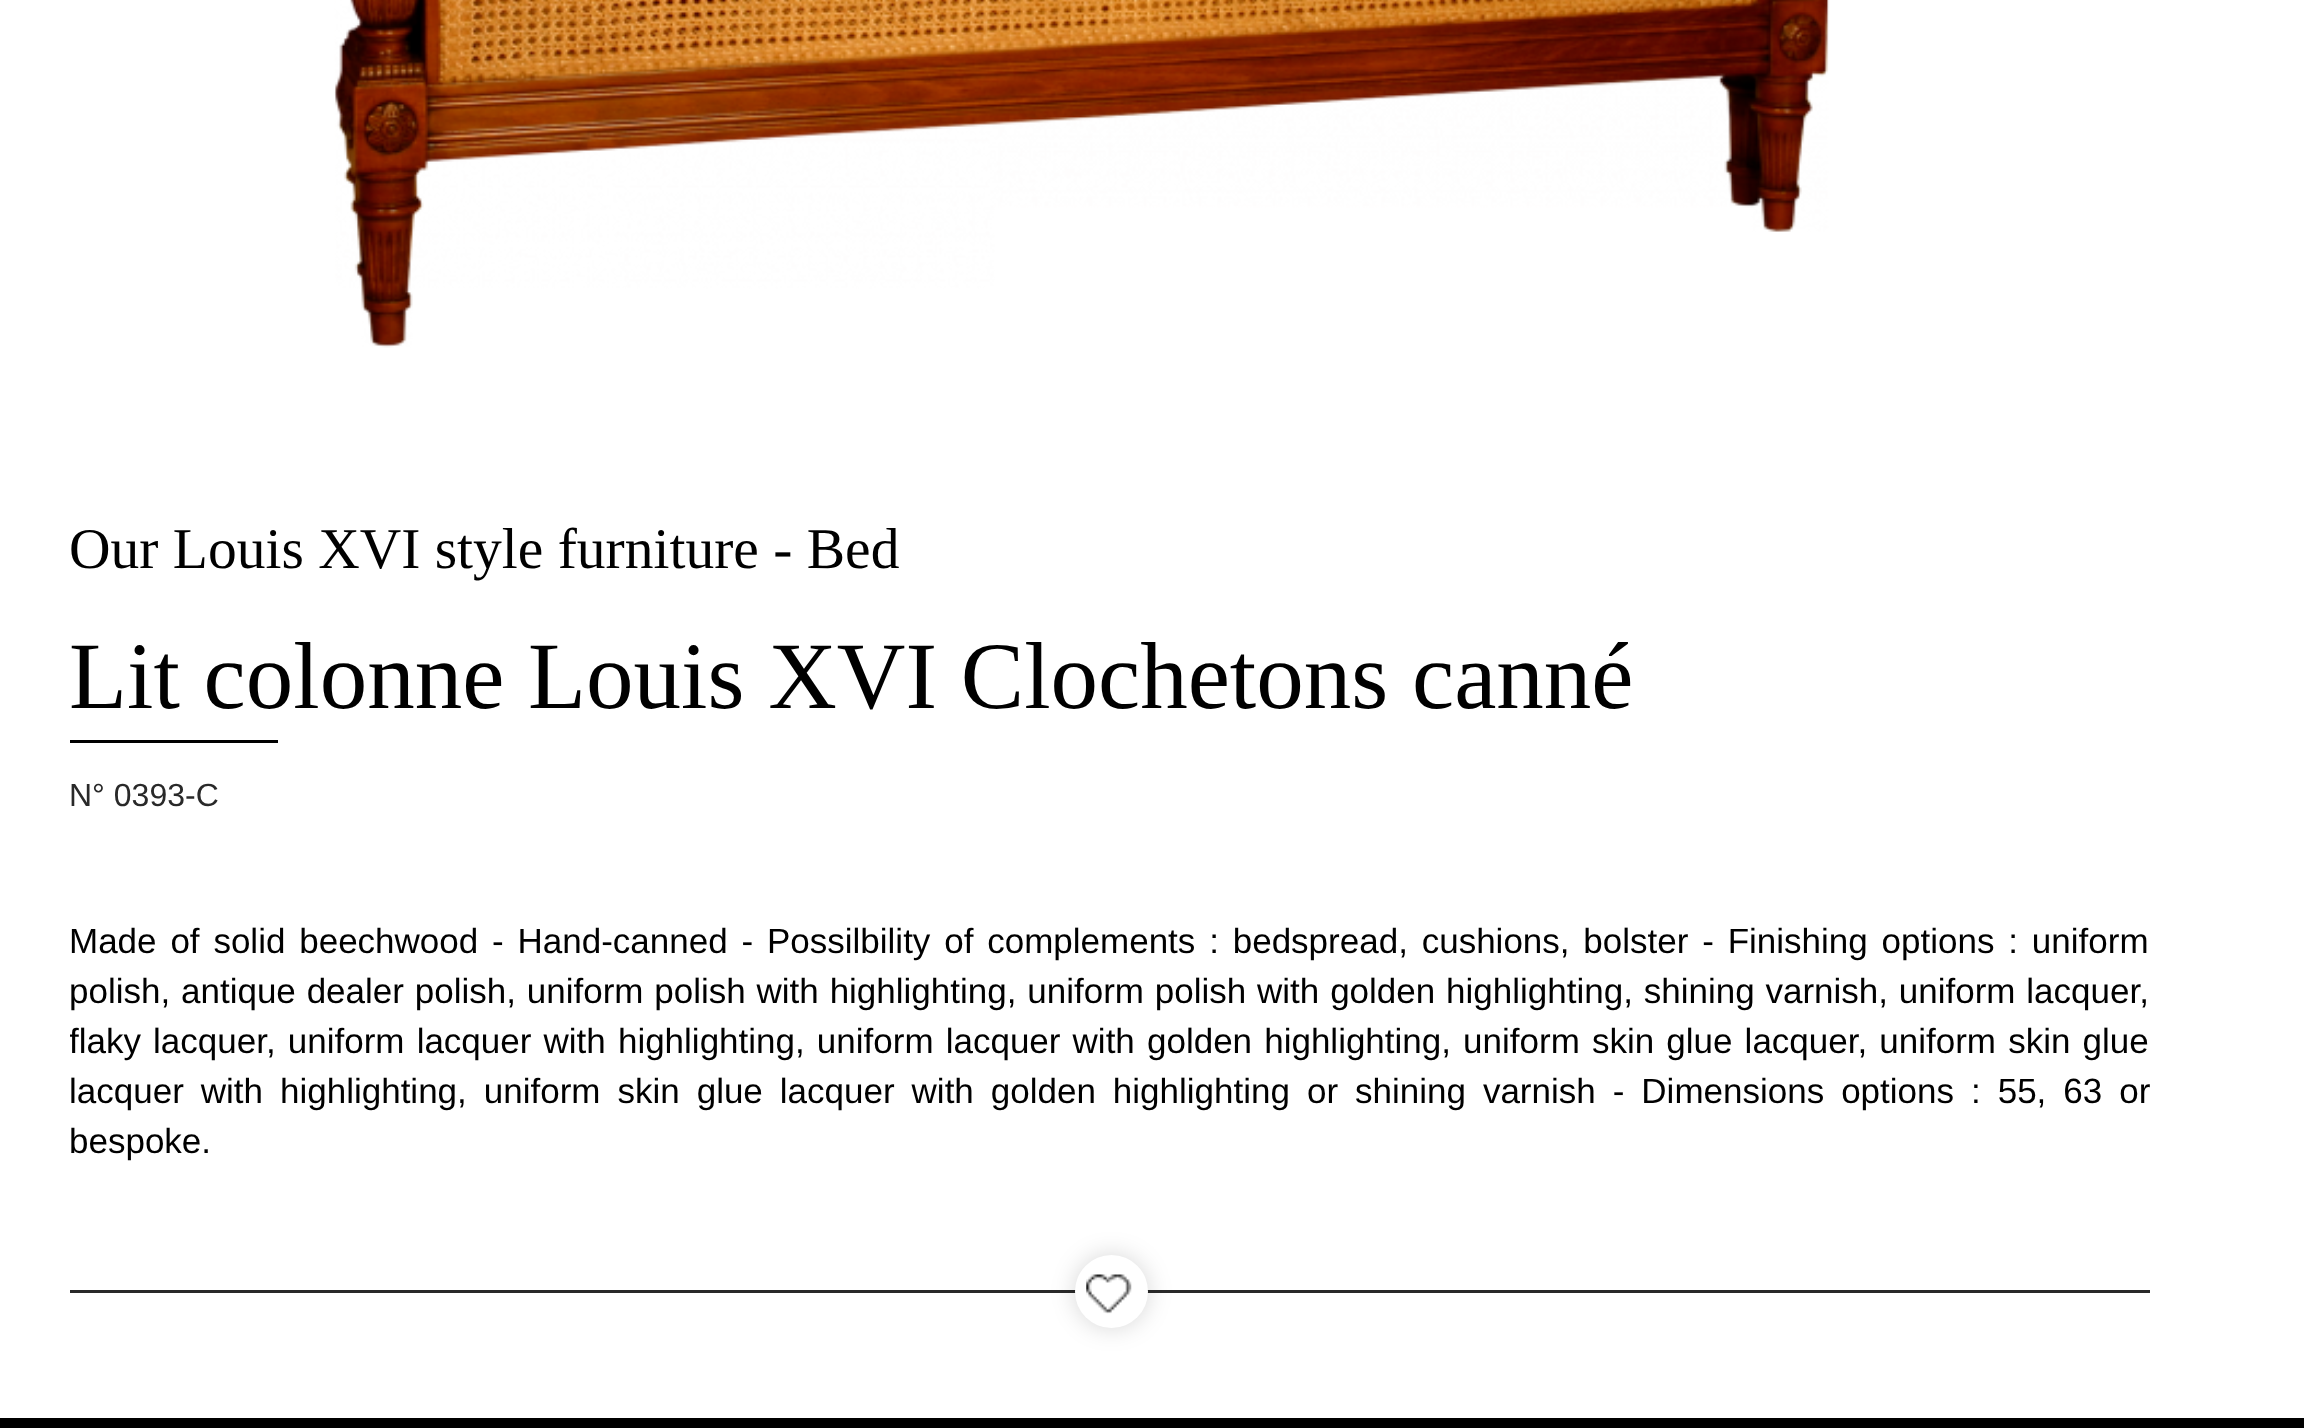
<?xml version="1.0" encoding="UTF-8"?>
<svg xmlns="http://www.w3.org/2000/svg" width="2304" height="1428">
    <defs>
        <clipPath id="clip1"><rect x="70" y="0" width="2165" height="1418"/></clipPath>
        <filter id="blur1" x="-50%" y="-200%" width="200%" height="500%"><feGaussianBlur stdDeviation="12.5"/></filter>
    </defs>
    <rect width="100%" height="100%" fill="#FFFFFF"/>
    <image x="334" y="0" width="1496" height="348" href="img_01.png"/>
    <rect x="70" y="1290" width="2080" height="3" fill="#292929"/>
    <text x="69" y="568" font-family="Liberation Serif" font-size="57.5" fill="#000000">Our Louis XVI style furniture - Bed</text>
    <text x="69" y="708" font-family="Liberation Serif" font-size="95" fill="#000000">Lit colonne Louis XVI Clochetons canné</text>
    <rect x="70" y="740" width="208" height="3" fill="#000000"/>
    <text x="69" y="806" font-family="Liberation Sans" font-size="32" fill="#292929">N° 0393-C</text>
    <text font-family="Liberation Sans" font-size="35" fill="#000000">
        <tspan x="69" y="953" word-spacing="4.1">Made of solid beechwood - Hand-canned - Possilbility of complements : bedspread, cushions, bolster - Finishing options : uniform</tspan>
        <tspan x="69" y="1003" word-spacing="1.1">polish, antique dealer polish, uniform polish with highlighting, uniform polish with golden highlighting, shining varnish, uniform lacquer,</tspan>
    </text>
    <g clip-path="url(#clip1)">
        <text x="69" y="1053" word-spacing="2.4" font-family="Liberation Sans" font-size="35" fill="#000000">flaky lacquer, uniform lacquer with highlighting, uniform lacquer with golden highlighting, uniform skin glue lacquer, uniform skin glue</text>
    </g>
    <text font-family="Liberation Sans" font-size="35" fill="#000000">
        <tspan x="69" y="1103" word-spacing="7.25">lacquer with highlighting, uniform skin glue lacquer with golden highlighting or shining varnish - Dimensions options : 55, 63 or</tspan>
        <tspan x="69" y="1153">bespoke.</tspan>
    </text>
    <rect x="1075" y="1255" width="73" height="73" rx="36.5" fill="#000000" fill-opacity="0.16" filter="url(#blur1)"/>
    <circle cx="1111.5" cy="1291.5" r="36.5" fill="#FFFFFF"/>
    <image x="1086" y="1274" width="46" height="40" href="img_02.png"/>
    <rect x="0" y="1418" width="2304" height="10" fill="#000000"/>
</svg>
